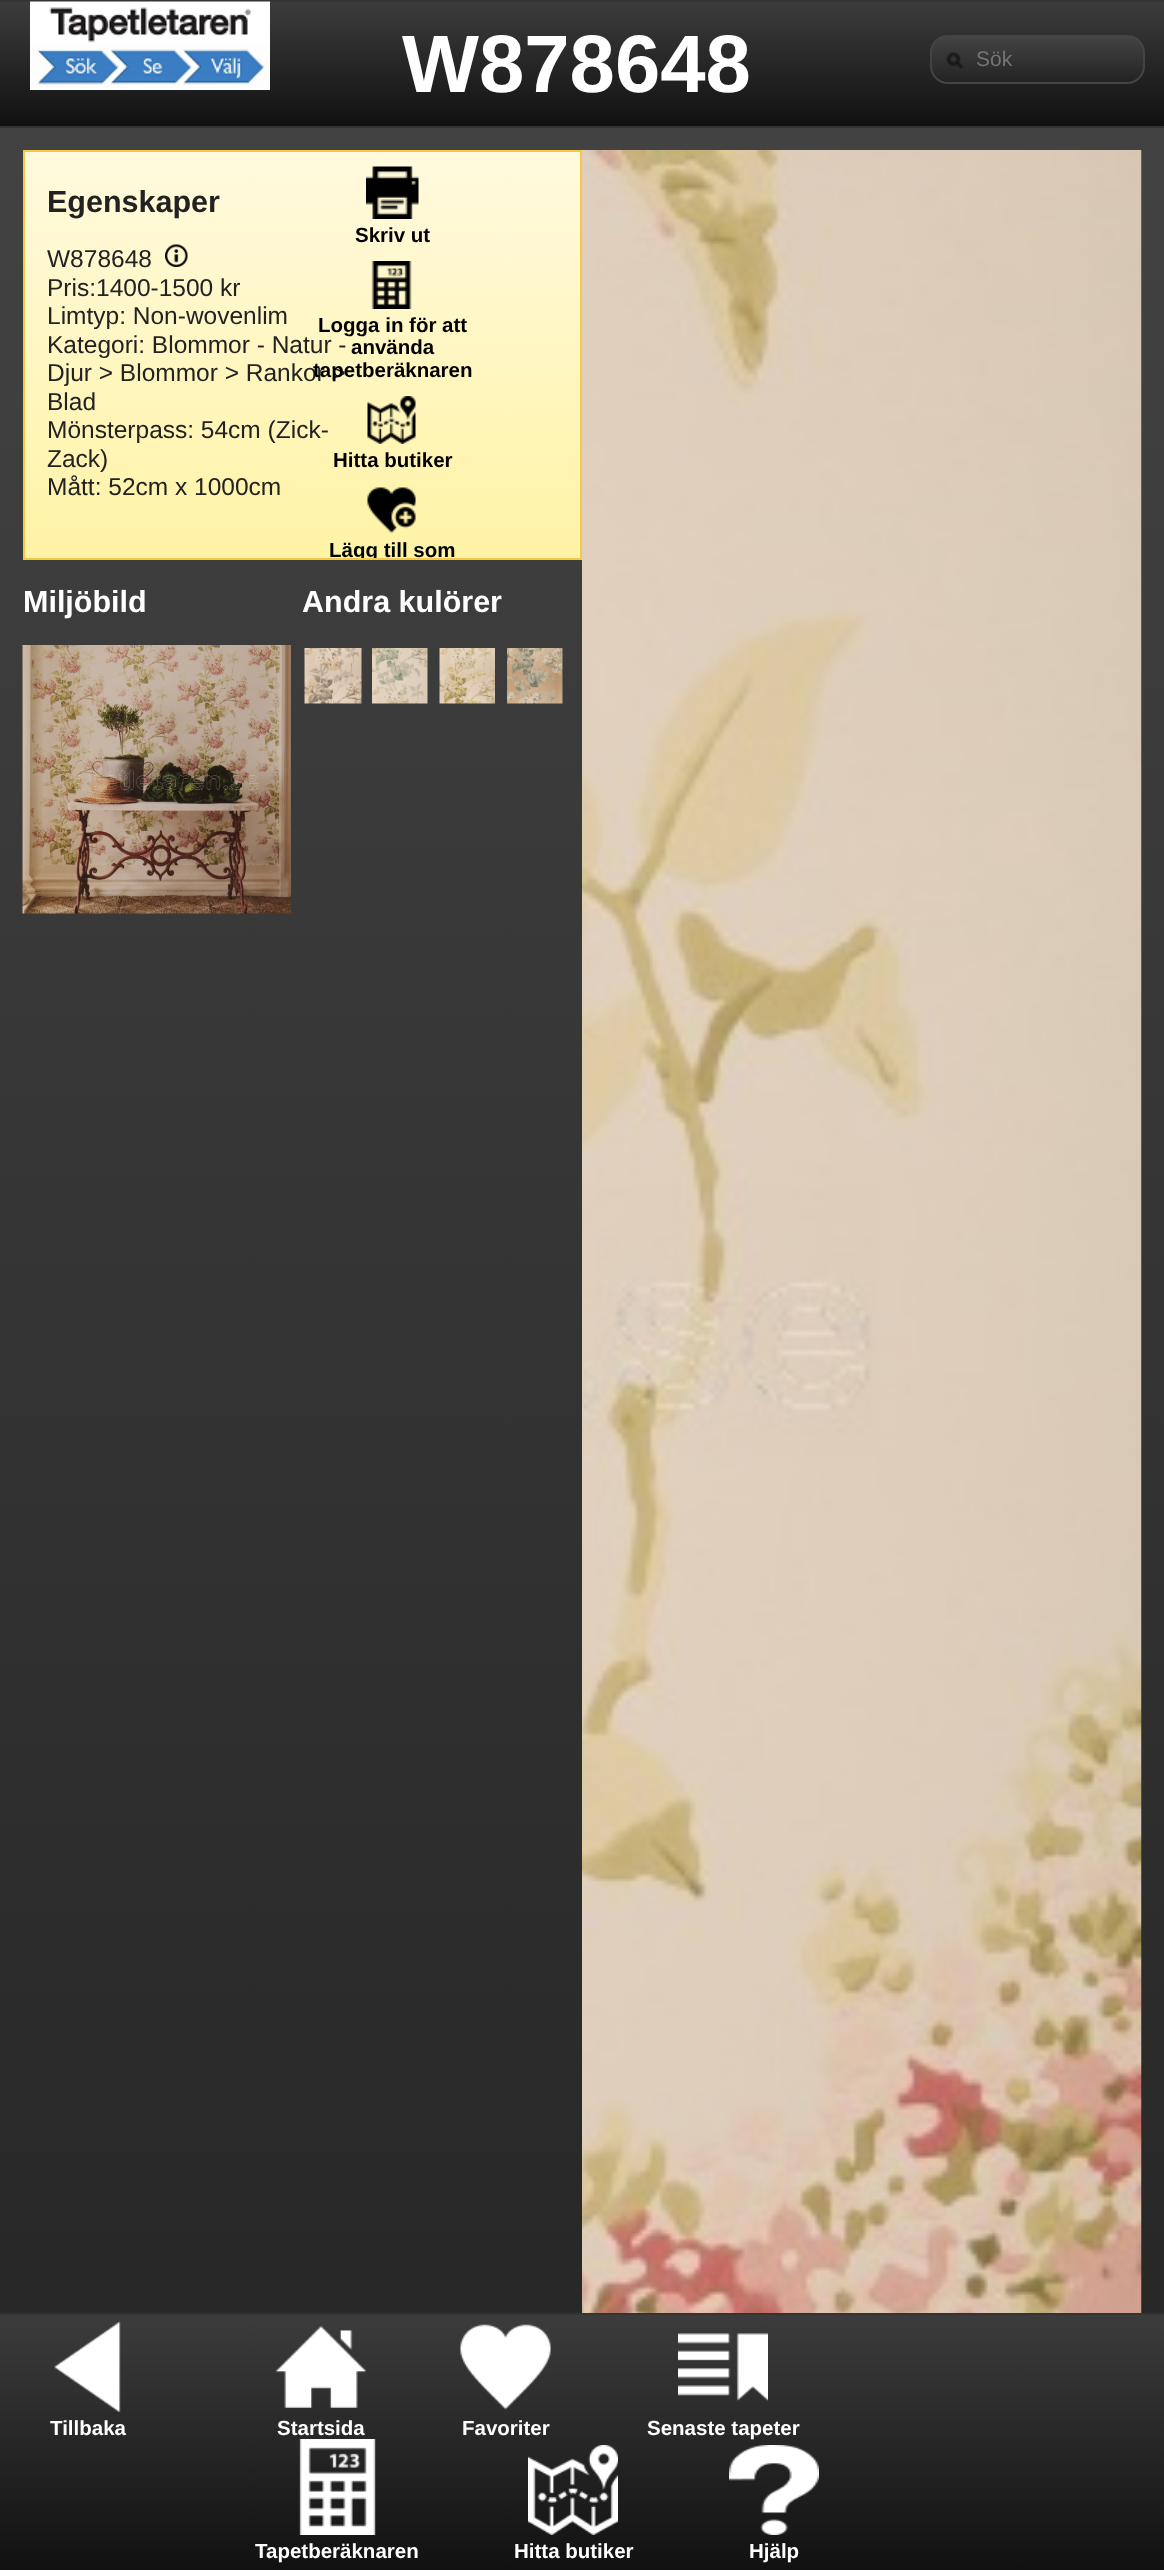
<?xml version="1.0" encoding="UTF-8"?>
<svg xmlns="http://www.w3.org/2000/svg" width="1164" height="2570">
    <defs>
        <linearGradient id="g1" gradientUnits="userSpaceOnUse" x1="582" y1="0" x2="582" y2="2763"><stop offset="0" stop-color="#444444"/><stop offset="1" stop-color="#222222"/></linearGradient>
        <linearGradient id="g2" gradientUnits="userSpaceOnUse" x1="582" y1="1.5" x2="582" y2="126"><stop offset="0" stop-color="#3C3C3C"/><stop offset="1" stop-color="#111111"/></linearGradient>
        <clipPath id="clip1"><rect x="930" y="35" width="215" height="49" rx="18"/></clipPath>
        <linearGradient id="g3" gradientUnits="userSpaceOnUse" x1="1037" y1="36" x2="1037" y2="83"><stop offset="0" stop-color="#444444"/><stop offset="1" stop-color="#222222"/></linearGradient>
        <linearGradient id="g4" gradientUnits="userSpaceOnUse" x1="302" y1="151" x2="302" y2="558"><stop offset="0" stop-color="#FFFADF"/><stop offset="1" stop-color="#FFF3A5"/></linearGradient>
        <clipPath id="clip2"><rect x="24" y="152" width="557" height="406"/></clipPath>
        <linearGradient id="g5" gradientUnits="userSpaceOnUse" x1="582" y1="2315" x2="582" y2="2570"><stop offset="0" stop-color="#3C3C3C"/><stop offset="1" stop-color="#111111"/></linearGradient>
    </defs>
    <rect width="100%" height="100%" fill="#FFFFFF"/>
    <rect x="0" y="128" width="1164" height="2185" fill="url(#g1)"/>
    <rect x="0" y="2" width="1164" height="124" fill="url(#g2)"/>
    <rect x="0" y="0" width="1164" height="2" fill="#333333"/>
    <rect x="0" y="126" width="1164" height="2" fill="#333333"/>
    <image x="30" y="1" width="240" height="89" href="img_01.png"/>
    <text x="402" y="92" font-family="Liberation Sans" font-size="81.5" font-weight="700" fill="#FFFFFF">W878648</text>
    <g clip-path="url(#clip1)">
        <rect x="930" y="36" width="215" height="47" fill="url(#g3)"/>
    </g>
    <rect x="931" y="36" width="213" height="47" rx="17" fill="none" stroke="#444444" stroke-width="2"/>
    <image x="946" y="52" width="17" height="17" href="img_02.png"/>
    <text x="976" y="66" font-family="Liberation Sans" font-size="21" fill="#757575">Sök</text>
    <rect x="25" y="152" width="555" height="406" fill="url(#g4)"/>
    <rect x="24" y="151" width="557" height="408" fill="none" stroke="#F7C942" stroke-width="2"/>
    <text x="47" y="212" font-family="Liberation Sans" font-size="30.5" font-weight="700" fill="#222222">Egenskaper</text>
    <text x="47" y="267" font-family="Liberation Sans" font-size="24.5" fill="#222222">W878648</text>
    <image x="165" y="244" width="23" height="23" href="img_03.png"/>
    <text font-family="Liberation Sans" font-size="24.5" fill="#222222">
        <tspan x="47" y="296">Pris:1400-1500 kr</tspan>
        <tspan x="47" y="324">Limtyp: Non-wovenlim</tspan>
        <tspan x="47" y="353">Kategori: Blommor - Natur -</tspan>
        <tspan x="47" y="381">Djur &gt; Blommor &gt; Rankor &gt;</tspan>
        <tspan x="47" y="410">Blad</tspan>
        <tspan x="47" y="438">Mönsterpass: 54cm (Zick-</tspan>
        <tspan x="47" y="467">Zack)</tspan>
        <tspan x="47" y="495">Mått: 52cm x 1000cm</tspan>
    </text>
    <image x="366" y="166" width="53" height="53" href="img_04.png"/>
    <text x="355" y="242" font-family="Liberation Sans" font-size="20.5" font-weight="700" fill="#000000">Skriv ut</text>
    <image x="371" y="261" width="41" height="48" href="img_05.png"/>
    <text x="318" y="332" font-family="Liberation Sans" font-size="20.5" font-weight="700" fill="#000000">Logga in för att</text>
    <text x="351" y="354" font-family="Liberation Sans" font-size="20.5" font-weight="700" fill="#000000">använda</text>
    <text x="313" y="377" font-family="Liberation Sans" font-size="20.5" font-weight="700" fill="#000000">tapetberäknaren</text>
    <image x="367" y="396" width="49" height="48" href="img_06.png"/>
    <text x="333" y="467" font-family="Liberation Sans" font-size="20.5" font-weight="700" fill="#000000">Hitta butiker</text>
    <image x="367" y="487" width="49" height="46" href="img_07.png"/>
    <g clip-path="url(#clip2)">
        <text x="329" y="557" font-family="Liberation Sans" font-size="20.5" font-weight="700" fill="#000000">Lägg till som</text>
    </g>
    <text x="23" y="612" font-family="Liberation Sans" font-size="30.5" font-weight="700" fill="#FFFFFF">Miljöbild</text>
    <image x="22" y="645" width="269" height="269" href="img_08.png"/>
    <text x="302" y="612" font-family="Liberation Sans" font-size="30.5" font-weight="700" fill="#FFFFFF">Andra kulörer</text>
    <image x="304" y="648" width="58" height="56" href="img_09.png"/>
    <image x="372" y="648" width="56" height="56" href="img_10.png"/>
    <image x="439" y="648" width="56" height="56" href="img_11.png"/>
    <image x="507" y="648" width="56" height="56" href="img_12.png"/>
    <image x="582" y="150" width="560" height="2163" href="img_13.png"/>
    <rect x="0" y="2315" width="1164" height="255" fill="url(#g5)"/>
    <rect x="0" y="2313" width="1164" height="2" fill="#333333"/>
    <image x="54" y="2322" width="67" height="90" href="img_14.png"/>
    <text x="50" y="2435" font-family="Liberation Sans" font-size="20.5" font-weight="700" fill="#FFFFFF">Tillbaka</text>
    <image x="276" y="2326" width="90" height="82" href="img_15.png"/>
    <text x="277" y="2435" font-family="Liberation Sans" font-size="20.5" font-weight="700" fill="#FFFFFF">Startsida</text>
    <image x="460" y="2324" width="91" height="86" href="img_16.png"/>
    <text x="462" y="2435" font-family="Liberation Sans" font-size="20.5" font-weight="700" fill="#FFFFFF">Favoriter</text>
    <image x="678" y="2333" width="90" height="68" href="img_17.png"/>
    <text x="647" y="2435" font-family="Liberation Sans" font-size="20.5" font-weight="700" fill="#FFFFFF">Senaste tapeter</text>
    <image x="299" y="2439" width="77" height="96" href="img_18.png"/>
    <text x="255" y="2558" font-family="Liberation Sans" font-size="20.5" font-weight="700" fill="#FFFFFF">Tapetberäknaren</text>
    <image x="528" y="2445" width="90" height="90" href="img_19.png"/>
    <text x="514" y="2558" font-family="Liberation Sans" font-size="20.5" font-weight="700" fill="#FFFFFF">Hitta butiker</text>
    <image x="729" y="2445" width="90" height="90" href="img_20.png"/>
    <text x="749" y="2558" font-family="Liberation Sans" font-size="20.5" font-weight="700" fill="#FFFFFF">Hjälp</text>
</svg>
